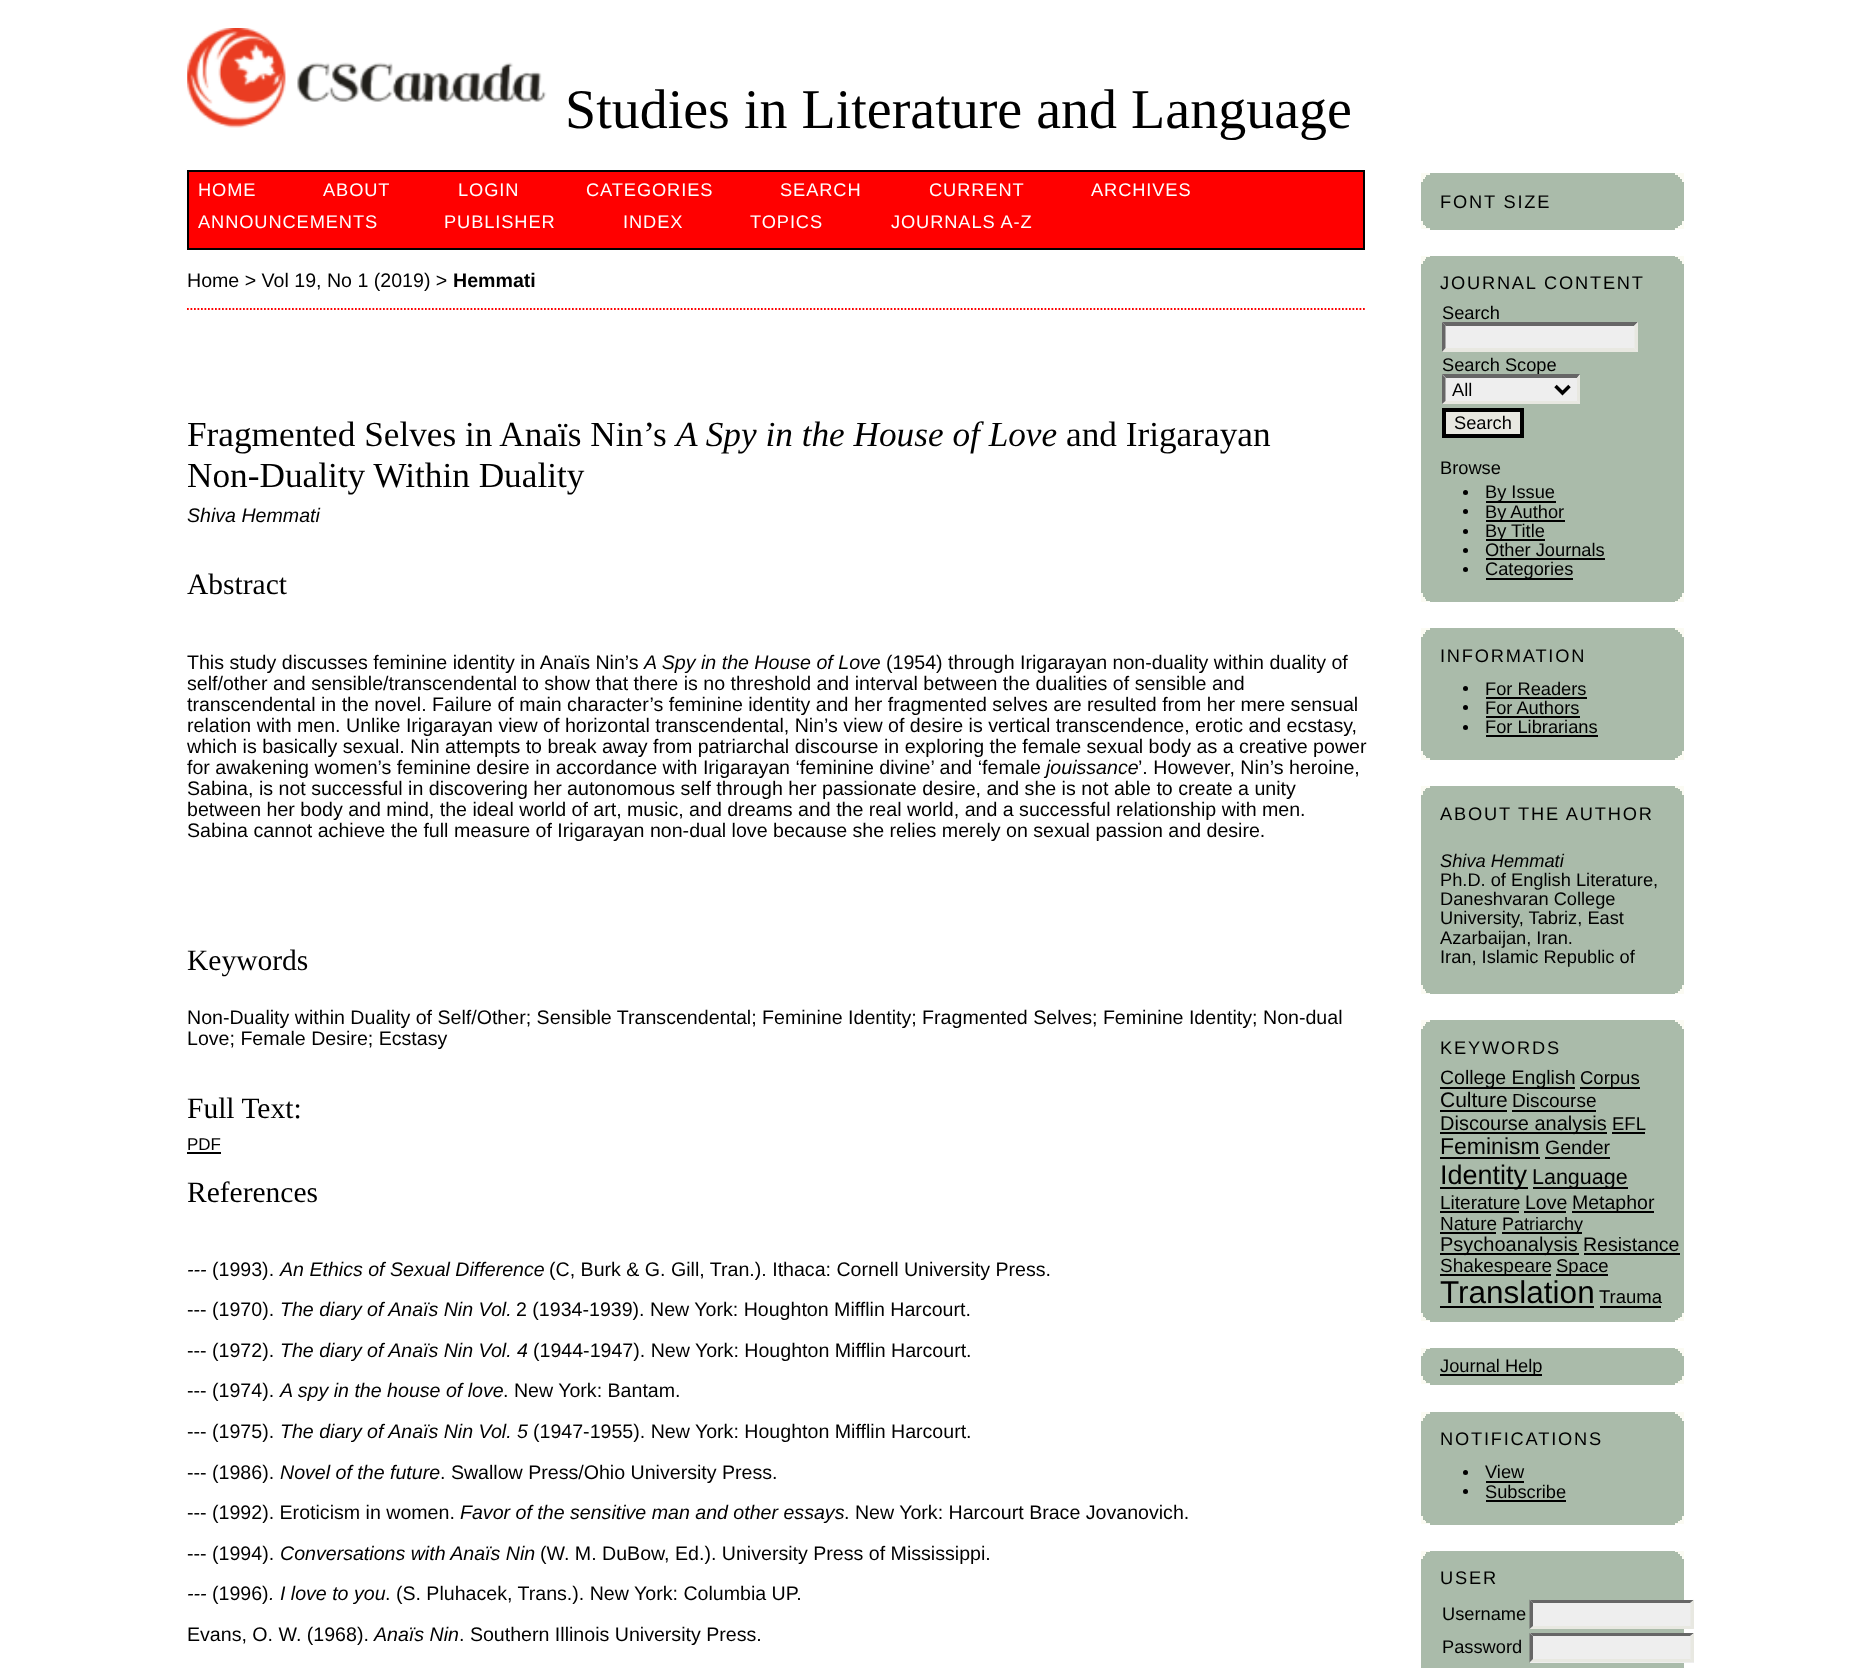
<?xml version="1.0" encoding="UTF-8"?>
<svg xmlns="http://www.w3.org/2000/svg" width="1870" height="1668">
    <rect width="100%" height="100%" fill="#FFFFFF"/>
    <image x="187" y="28" width="360" height="100" href="img_01.png"/>
    <text x="565" y="128" font-family="Liberation Serif" font-size="56" fill="#000000">Studies in Literature and Language</text>
    <rect x="188" y="171" width="1176" height="78" fill="#FF0000" stroke="#000000" stroke-width="2"/>
    <text x="198" y="196" font-family="Liberation Sans" font-size="18.25" letter-spacing="0.9" fill="#FFFFFF">HOME</text>
    <text x="323" y="196" font-family="Liberation Sans" font-size="18.25" letter-spacing="0.9" fill="#FFFFFF">ABOUT</text>
    <text x="458" y="196" font-family="Liberation Sans" font-size="18.25" letter-spacing="0.9" fill="#FFFFFF">LOGIN</text>
    <text x="586" y="196" font-family="Liberation Sans" font-size="18.25" letter-spacing="0.9" fill="#FFFFFF">CATEGORIES</text>
    <text x="780" y="196" font-family="Liberation Sans" font-size="18.25" letter-spacing="0.9" fill="#FFFFFF">SEARCH</text>
    <text x="929" y="196" font-family="Liberation Sans" font-size="18.25" letter-spacing="0.9" fill="#FFFFFF">CURRENT</text>
    <text x="1091" y="196" font-family="Liberation Sans" font-size="18.25" letter-spacing="0.9" fill="#FFFFFF">ARCHIVES</text>
    <text x="198" y="228" font-family="Liberation Sans" font-size="18.25" letter-spacing="0.9" fill="#FFFFFF">ANNOUNCEMENTS</text>
    <text x="444" y="228" font-family="Liberation Sans" font-size="18.25" letter-spacing="0.9" fill="#FFFFFF">PUBLISHER</text>
    <text x="623" y="228" font-family="Liberation Sans" font-size="18.25" letter-spacing="0.9" fill="#FFFFFF">INDEX</text>
    <text x="750" y="228" font-family="Liberation Sans" font-size="18.25" letter-spacing="0.9" fill="#FFFFFF">TOPICS</text>
    <text x="891" y="228" font-family="Liberation Sans" font-size="18.25" letter-spacing="0.9" fill="#FFFFFF">JOURNALS A-Z</text>
    <path d="M 187 309 H 1365" fill="none" stroke="#FF0000" stroke-width="1.8" stroke-dasharray="1.75 1.75"/>
    <text x="187" y="287" font-family="Liberation Sans" font-size="19.6" fill="#000000">Home &gt; Vol 19, No 1 (2019) &gt;</text>
    <text x="453" y="287" font-family="Liberation Sans" font-size="19.6" font-weight="700" fill="#000000">Hemmati</text>
    <text x="187" y="446" font-family="Liberation Serif" font-size="35.25" fill="#000000">Fragmented Selves in Anaïs Nin’s</text>
    <text x="676" y="446" font-family="Liberation Serif" font-size="35.25" font-style="italic" fill="#000000">A Spy in the House of Love</text>
    <text x="1066" y="446" font-family="Liberation Serif" font-size="35.25" fill="#000000">and Irigarayan</text>
    <text x="187" y="487" font-family="Liberation Serif" font-size="35.25" fill="#000000">Non-Duality Within Duality</text>
    <text x="187" y="522" font-family="Liberation Sans" font-size="19.6" font-style="italic" fill="#000000">Shiva Hemmati</text>
    <text x="187" y="594" font-family="Liberation Serif" font-size="29.5" fill="#000000">Abstract</text>
    <text x="187" y="669" font-family="Liberation Sans" font-size="19.6" fill="#000000">This study discusses feminine identity in Anaïs Nin’s</text>
    <text x="644" y="669" font-family="Liberation Sans" font-size="19.6" font-style="italic" fill="#000000">A Spy in the House of Love</text>
    <text x="886" y="669" font-family="Liberation Sans" font-size="19.6" fill="#000000">(1954) through Irigarayan non-duality within duality of</text>
    <text font-family="Liberation Sans" font-size="19.6" fill="#000000">
        <tspan x="187" y="690">self/other and sensible/transcendental to show that there is no threshold and interval between the dualities of sensible and</tspan>
        <tspan x="187" y="711">transcendental in the novel. Failure of main character’s feminine identity and her fragmented selves are resulted from her mere sensual</tspan>
        <tspan x="187" y="732">relation with men. Unlike Irigarayan view of horizontal transcendental, Nin’s view of desire is vertical transcendence, erotic and ecstasy,</tspan>
        <tspan x="187" y="753">which is basically sexual. Nin attempts to break away from patriarchal discourse in exploring the female sexual body as a creative power</tspan>
        <tspan x="187" y="774">for awakening women’s feminine desire in accordance with Irigarayan ‘feminine divine’ and ‘female</tspan>
    </text>
    <text x="1046" y="774" font-family="Liberation Sans" font-size="19.6" font-style="italic" fill="#000000">jouissance</text>
    <text x="1138" y="774" font-family="Liberation Sans" font-size="19.6" fill="#000000">’. However, Nin’s heroine,</text>
    <text font-family="Liberation Sans" font-size="19.6" fill="#000000">
        <tspan x="187" y="795">Sabina, is not successful in discovering her autonomous self through her passionate desire, and she is not able to create a unity</tspan>
        <tspan x="187" y="816">between her body and mind, the ideal world of art, music, and dreams and the real world, and a successful relationship with men.</tspan>
        <tspan x="187" y="837">Sabina cannot achieve the full measure of Irigarayan non-dual love because she relies merely on sexual passion and desire.</tspan>
    </text>
    <text x="187" y="970" font-family="Liberation Serif" font-size="29.5" fill="#000000">Keywords</text>
    <text font-family="Liberation Sans" font-size="19.6" fill="#000000">
        <tspan x="187" y="1024">Non-Duality within Duality of Self/Other; Sensible Transcendental; Feminine Identity; Fragmented Selves; Feminine Identity; Non-dual</tspan>
        <tspan x="187" y="1045">Love; Female Desire; Ecstasy</tspan>
    </text>
    <text x="187" y="1118" font-family="Liberation Serif" font-size="29.5" fill="#000000">Full Text:</text>
    <text x="187" y="1150" font-family="Liberation Sans" font-size="17" fill="#000000">PDF</text>
    <rect x="187" y="1152" width="34" height="2" fill="#000000"/>
    <text x="187" y="1202" font-family="Liberation Serif" font-size="29.5" fill="#000000">References</text>
    <text x="187" y="1276" font-family="Liberation Sans" font-size="19.6" font-style="italic" fill="#000000">---</text>
    <text x="212" y="1276" font-family="Liberation Sans" font-size="19.6" fill="#000000">(1993).</text>
    <text x="280" y="1276" font-family="Liberation Sans" font-size="19.6" font-style="italic" fill="#000000">An Ethics of Sexual Difference</text>
    <text x="549" y="1276" font-family="Liberation Sans" font-size="19.6" fill="#000000">(C, Burk &amp; G. Gill, Tran.). Ithaca: Cornell University Press.</text>
    <text x="187" y="1316" font-family="Liberation Sans" font-size="19.6" fill="#000000">--- (1970).</text>
    <text x="280" y="1316" font-family="Liberation Sans" font-size="19.6" font-style="italic" fill="#000000">The diary of Anaïs Nin Vol.</text>
    <text x="516" y="1316" font-family="Liberation Sans" font-size="19.6" fill="#000000">2 (1934-1939). New York: Houghton Mifflin Harcourt.</text>
    <text x="187" y="1357" font-family="Liberation Sans" font-size="19.6" fill="#000000">--- (1972).</text>
    <text x="280" y="1357" font-family="Liberation Sans" font-size="19.6" font-style="italic" fill="#000000">The diary of Anaïs Nin Vol. 4</text>
    <text x="533" y="1357" font-family="Liberation Sans" font-size="19.6" fill="#000000">(1944-1947). New York: Houghton Mifflin Harcourt.</text>
    <text x="187" y="1397" font-family="Liberation Sans" font-size="19.6" fill="#000000">--- (1974).</text>
    <text x="280" y="1397" font-family="Liberation Sans" font-size="19.6" font-style="italic" fill="#000000">A spy in the house of love</text>
    <text x="503" y="1397" font-family="Liberation Sans" font-size="19.6" fill="#000000">. New York: Bantam.</text>
    <text x="187" y="1438" font-family="Liberation Sans" font-size="19.6" fill="#000000">--- (1975).</text>
    <text x="280" y="1438" font-family="Liberation Sans" font-size="19.6" font-style="italic" fill="#000000">The diary of Anaïs Nin Vol. 5</text>
    <text x="533" y="1438" font-family="Liberation Sans" font-size="19.6" fill="#000000">(1947-1955). New York: Houghton Mifflin Harcourt.</text>
    <text x="187" y="1479" font-family="Liberation Sans" font-size="19.6" fill="#000000">--- (1986).</text>
    <text x="280" y="1479" font-family="Liberation Sans" font-size="19.6" font-style="italic" fill="#000000">Novel of the future</text>
    <text x="440" y="1479" font-family="Liberation Sans" font-size="19.6" fill="#000000">. Swallow Press/Ohio University Press.</text>
    <text x="187" y="1519" font-family="Liberation Sans" font-size="19.6" fill="#000000">--- (1992). Eroticism in women.</text>
    <text x="460" y="1519" font-family="Liberation Sans" font-size="19.6" font-style="italic" fill="#000000">Favor of the sensitive man and other essays</text>
    <text x="844" y="1519" font-family="Liberation Sans" font-size="19.6" fill="#000000">. New York: Harcourt Brace Jovanovich.</text>
    <text x="187" y="1560" font-family="Liberation Sans" font-size="19.6" fill="#000000">--- (1994).</text>
    <text x="280" y="1560" font-family="Liberation Sans" font-size="19.6" font-style="italic" fill="#000000">Conversations with Anaïs Nin</text>
    <text x="540" y="1560" font-family="Liberation Sans" font-size="19.6" fill="#000000">(W. M. DuBow, Ed.). University Press of Mississippi.</text>
    <text x="187" y="1600" font-family="Liberation Sans" font-size="19.6" font-style="italic" fill="#000000">---</text>
    <text x="212" y="1600" font-family="Liberation Sans" font-size="19.6" fill="#000000">(1996)</text>
    <text x="269" y="1600" font-family="Liberation Sans" font-size="19.6" font-style="italic" fill="#000000">. I love to you</text>
    <text x="385" y="1600" font-family="Liberation Sans" font-size="19.6" fill="#000000">. (S. Pluhacek, Trans.). New York: Columbia UP.</text>
    <text x="187" y="1641" font-family="Liberation Sans" font-size="19.6" fill="#000000">Evans, O. W. (1968).</text>
    <text x="374" y="1641" font-family="Liberation Sans" font-size="19.6" font-style="italic" fill="#000000">Anaïs Nin</text>
    <text x="459" y="1641" font-family="Liberation Sans" font-size="19.6" fill="#000000">. Southern Illinois University Press.</text>
    <rect x="1421" y="182" width="263" height="39" fill="#AABBAA"/>
    <rect x="1421" y="173" width="263" height="9" fill="#FBFBF3"/>
    <rect x="1430" y="173" width="245" height="2" fill="#AABBAA"/>
    <rect x="1426" y="175" width="252" height="2" fill="#AABBAA"/>
    <rect x="1425" y="177" width="255" height="2" fill="#AABBAA"/>
    <rect x="1423" y="179" width="259" height="3" fill="#AABBAA"/>
    <text x="1440" y="208" font-family="Liberation Sans" font-size="18.25" letter-spacing="1.8" fill="#000000">FONT SIZE</text>
    <rect x="1421" y="221" width="263" height="8" fill="#FBFBF3"/>
    <rect x="1423" y="221" width="259" height="4" fill="#AABBAA"/>
    <rect x="1425" y="225" width="255" height="1" fill="#AABBAA"/>
    <rect x="1426" y="226" width="252" height="2" fill="#AABBAA"/>
    <rect x="1430" y="228" width="245" height="2" fill="#AABBAA"/>
    <rect x="1421" y="264" width="263" height="329" fill="#AABBAA"/>
    <rect x="1421" y="256" width="263" height="8" fill="#FBFBF3"/>
    <rect x="1430" y="256" width="245" height="1" fill="#AABBAA"/>
    <rect x="1426" y="257" width="252" height="2" fill="#AABBAA"/>
    <rect x="1425" y="259" width="255" height="2" fill="#AABBAA"/>
    <rect x="1423" y="261" width="259" height="3" fill="#AABBAA"/>
    <text x="1440" y="289" font-family="Liberation Sans" font-size="18.25" letter-spacing="1.8" fill="#000000">JOURNAL CONTENT</text>
    <text x="1442" y="319" font-family="Liberation Sans" font-size="18.25" fill="#000000">Search</text>
    <rect x="1442" y="322" width="196" height="30" fill="#EEEEEE"/>
    <path d="M 1442 322 H 1638 L 1634 326 H 1446 Z" fill="#666666"/>
    <path d="M 1638 322 V 352 L 1634.5 348 V 325.5 Z" fill="#E8E8E1"/>
    <path d="M 1638 352 H 1442 L 1446 348 H 1634 Z" fill="#E8E8E1"/>
    <path d="M 1442 352 V 322 L 1445.5 325.5 V 348 Z" fill="#666666"/>
    <text x="1442" y="371" font-family="Liberation Sans" font-size="18.25" fill="#000000">Search Scope</text>
    <rect x="1442" y="375" width="138" height="29" fill="#EEEEEE"/>
    <path d="M 1442 374 H 1580 L 1577 378 H 1446 Z" fill="#666666"/>
    <path d="M 1580 374.5 V 404 L 1577 401 V 378 Z" fill="#E8E8E1"/>
    <path d="M 1580 404 H 1442 L 1446 401 H 1577 Z" fill="#E8E8E1"/>
    <path d="M 1442 404 V 374.5 L 1445.5 378 V 401 Z" fill="#666666"/>
    <path d="M 1555.5 386 L 1562.5 393 L 1569.5 386" fill="none" stroke="#000000" stroke-width="3.5"/>
    <text x="1452" y="396" font-family="Liberation Sans" font-size="18.25" fill="#000000">All</text>
    <rect x="1444" y="410" width="78" height="26" fill="#E8E8E1" stroke="#000000" stroke-width="4"/>
    <text x="1454" y="429" font-family="Liberation Sans" font-size="18.25" fill="#000000">Search</text>
    <text x="1440" y="474" font-family="Liberation Sans" font-size="18.25" fill="#000000">Browse</text>
    <circle cx="1465.5" cy="492.5" r="2.5" fill="#000000"/>
    <rect x="1486" y="501" width="70" height="2" fill="#000000"/>
    <text x="1485" y="498" font-family="Liberation Sans" font-size="18.25" fill="#000000">By Issue</text>
    <circle cx="1465.5" cy="511.5" r="2.5" fill="#000000"/>
    <rect x="1486" y="520" width="79" height="2" fill="#000000"/>
    <text x="1485" y="518" font-family="Liberation Sans" font-size="18.25" fill="#000000">By Author</text>
    <circle cx="1465.5" cy="531.5" r="2.5" fill="#000000"/>
    <rect x="1486" y="539" width="59" height="2" fill="#000000"/>
    <text x="1485" y="537" font-family="Liberation Sans" font-size="18.25" fill="#000000">By Title</text>
    <circle cx="1465.5" cy="550.5" r="2.5" fill="#000000"/>
    <text x="1485" y="556" font-family="Liberation Sans" font-size="18.25" fill="#000000">Other Journals</text>
    <rect x="1486" y="558" width="119" height="2" fill="#000000"/>
    <circle cx="1465.5" cy="569.5" r="2.5" fill="#000000"/>
    <rect x="1486" y="578" width="87" height="2" fill="#000000"/>
    <text x="1485" y="575" font-family="Liberation Sans" font-size="18.25" fill="#000000">Categories</text>
    <rect x="1421" y="593" width="263" height="9" fill="#FBFBF3"/>
    <rect x="1423" y="593" width="259" height="4" fill="#AABBAA"/>
    <rect x="1425" y="597" width="255" height="2" fill="#AABBAA"/>
    <rect x="1426" y="599" width="252" height="2" fill="#AABBAA"/>
    <rect x="1430" y="601" width="245" height="1" fill="#AABBAA"/>
    <rect x="1421" y="637" width="263" height="114" fill="#AABBAA"/>
    <rect x="1421" y="628" width="263" height="9" fill="#FBFBF3"/>
    <rect x="1430" y="628" width="245" height="2" fill="#AABBAA"/>
    <rect x="1426" y="630" width="252" height="2" fill="#AABBAA"/>
    <rect x="1425" y="632" width="255" height="2" fill="#AABBAA"/>
    <rect x="1423" y="634" width="259" height="3" fill="#AABBAA"/>
    <text x="1440" y="662" font-family="Liberation Sans" font-size="18.25" letter-spacing="1.8" fill="#000000">INFORMATION</text>
    <circle cx="1465.5" cy="688.5" r="2.5" fill="#000000"/>
    <text x="1485" y="695" font-family="Liberation Sans" font-size="18.25" fill="#000000">For Readers</text>
    <rect x="1486" y="697" width="101" height="2" fill="#000000"/>
    <circle cx="1465.5" cy="707.5" r="2.5" fill="#000000"/>
    <text x="1485" y="714" font-family="Liberation Sans" font-size="18.25" fill="#000000">For Authors</text>
    <rect x="1486" y="716" width="94" height="2" fill="#000000"/>
    <circle cx="1465.5" cy="727.5" r="2.5" fill="#000000"/>
    <text x="1485" y="733" font-family="Liberation Sans" font-size="18.25" fill="#000000">For Librarians</text>
    <rect x="1486" y="735" width="112" height="2" fill="#000000"/>
    <rect x="1421" y="751" width="263" height="9" fill="#FBFBF3"/>
    <rect x="1423" y="751" width="259" height="4" fill="#AABBAA"/>
    <rect x="1425" y="755" width="255" height="1" fill="#AABBAA"/>
    <rect x="1426" y="756" width="252" height="2" fill="#AABBAA"/>
    <rect x="1430" y="758" width="245" height="2" fill="#AABBAA"/>
    <rect x="1421" y="795" width="263" height="190" fill="#AABBAA"/>
    <rect x="1421" y="786" width="263" height="9" fill="#FBFBF3"/>
    <rect x="1430" y="786" width="245" height="2" fill="#AABBAA"/>
    <rect x="1426" y="788" width="252" height="1" fill="#AABBAA"/>
    <rect x="1425" y="789" width="255" height="2" fill="#AABBAA"/>
    <rect x="1423" y="791" width="259" height="4" fill="#AABBAA"/>
    <text x="1440" y="820" font-family="Liberation Sans" font-size="18.25" letter-spacing="1.8" fill="#000000">ABOUT THE AUTHOR</text>
    <text x="1440" y="867" font-family="Liberation Sans" font-size="18.25" font-style="italic" fill="#000000">Shiva Hemmati</text>
    <text font-family="Liberation Sans" font-size="18.25" fill="#000000">
        <tspan x="1440" y="886">Ph.D. of English Literature,</tspan>
        <tspan x="1440" y="905">Daneshvaran College</tspan>
        <tspan x="1440" y="924">University, Tabriz, East</tspan>
        <tspan x="1440" y="944">Azarbaijan, Iran.</tspan>
        <tspan x="1440" y="963">Iran, Islamic Republic of</tspan>
    </text>
    <rect x="1421" y="985" width="263" height="9" fill="#FBFBF3"/>
    <rect x="1423" y="985" width="259" height="4" fill="#AABBAA"/>
    <rect x="1425" y="989" width="255" height="2" fill="#AABBAA"/>
    <rect x="1426" y="991" width="252" height="2" fill="#AABBAA"/>
    <rect x="1430" y="993" width="245" height="1" fill="#AABBAA"/>
    <rect x="1421" y="1029" width="263" height="284" fill="#AABBAA"/>
    <rect x="1421" y="1020" width="263" height="9" fill="#FBFBF3"/>
    <rect x="1430" y="1020" width="245" height="2" fill="#AABBAA"/>
    <rect x="1426" y="1022" width="252" height="2" fill="#AABBAA"/>
    <rect x="1425" y="1024" width="255" height="2" fill="#AABBAA"/>
    <rect x="1423" y="1026" width="259" height="3" fill="#AABBAA"/>
    <text x="1440" y="1054" font-family="Liberation Sans" font-size="18.25" letter-spacing="1.8" fill="#000000">KEYWORDS</text>
    <rect x="1440" y="1087" width="135" height="2" fill="#000000"/>
    <text x="1440" y="1084" font-family="Liberation Sans" font-size="19.5" fill="#000000">College English</text>
    <rect x="1580" y="1087" width="60" height="2" fill="#000000"/>
    <text x="1580" y="1084" font-family="Liberation Sans" font-size="18.5" fill="#000000">Corpus</text>
    <text x="1440" y="1107" font-family="Liberation Sans" font-size="21" fill="#000000">Culture</text>
    <rect x="1440" y="1110" width="67" height="2" fill="#000000"/>
    <text x="1512" y="1107" font-family="Liberation Sans" font-size="19" fill="#000000">Discourse</text>
    <rect x="1512" y="1110" width="84" height="2" fill="#000000"/>
    <rect x="1440" y="1132" width="167" height="2" fill="#000000"/>
    <text x="1440" y="1130" font-family="Liberation Sans" font-size="20" fill="#000000">Discourse analysis</text>
    <text x="1612" y="1130" font-family="Liberation Sans" font-size="18.5" fill="#000000">EFL</text>
    <rect x="1612" y="1132" width="33" height="2" fill="#000000"/>
    <text x="1440" y="1154" font-family="Liberation Sans" font-size="23" fill="#000000">Feminism</text>
    <rect x="1440" y="1157" width="100" height="2" fill="#000000"/>
    <text x="1545" y="1154" font-family="Liberation Sans" font-size="19.5" fill="#000000">Gender</text>
    <rect x="1545" y="1157" width="65" height="2" fill="#000000"/>
    <rect x="1440" y="1187" width="88" height="2" fill="#000000"/>
    <text x="1440" y="1184" font-family="Liberation Sans" font-size="27" fill="#000000">Identity</text>
    <rect x="1533" y="1187" width="95" height="2" fill="#000000"/>
    <text x="1532" y="1184" font-family="Liberation Sans" font-size="21.5" fill="#000000">Language</text>
    <text x="1440" y="1209" font-family="Liberation Sans" font-size="19" fill="#000000">Literature</text>
    <rect x="1440" y="1211" width="79" height="2" fill="#000000"/>
    <text x="1525" y="1209" font-family="Liberation Sans" font-size="19.5" fill="#000000">Love</text>
    <rect x="1524" y="1211" width="42" height="2" fill="#000000"/>
    <rect x="1572" y="1211" width="82" height="2" fill="#000000"/>
    <text x="1572" y="1209" font-family="Liberation Sans" font-size="19.5" fill="#000000">Metaphor</text>
    <text x="1440" y="1230" font-family="Liberation Sans" font-size="19" fill="#000000">Nature</text>
    <rect x="1440" y="1232" width="56" height="2" fill="#000000"/>
    <rect x="1502" y="1232" width="80" height="2" fill="#000000"/>
    <text x="1502" y="1230" font-family="Liberation Sans" font-size="18" fill="#000000">Patriarchy</text>
    <rect x="1440" y="1253" width="139" height="2" fill="#000000"/>
    <text x="1440" y="1251" font-family="Liberation Sans" font-size="20" fill="#000000">Psychoanalysis</text>
    <text x="1583" y="1251" font-family="Liberation Sans" font-size="19.5" fill="#000000">Resistance</text>
    <rect x="1584" y="1253" width="96" height="2" fill="#000000"/>
    <rect x="1440" y="1274" width="111" height="2" fill="#000000"/>
    <text x="1440" y="1272" font-family="Liberation Sans" font-size="19" fill="#000000">Shakespeare</text>
    <rect x="1556" y="1274" width="52" height="2" fill="#000000"/>
    <text x="1556" y="1272" font-family="Liberation Sans" font-size="18.5" fill="#000000">Space</text>
    <text x="1440" y="1303" font-family="Liberation Sans" font-size="31.5" fill="#000000">Translation</text>
    <rect x="1440" y="1306" width="154" height="2" fill="#000000"/>
    <text x="1599" y="1303" font-family="Liberation Sans" font-size="18.5" fill="#000000">Trauma</text>
    <rect x="1600" y="1306" width="61" height="2" fill="#000000"/>
    <rect x="1421" y="1313" width="263" height="8" fill="#FBFBF3"/>
    <rect x="1423" y="1313" width="259" height="4" fill="#AABBAA"/>
    <rect x="1425" y="1317" width="255" height="1" fill="#AABBAA"/>
    <rect x="1426" y="1318" width="252" height="2" fill="#AABBAA"/>
    <rect x="1430" y="1320" width="245" height="2" fill="#AABBAA"/>
    <rect x="1421" y="1356" width="263" height="20" fill="#AABBAA"/>
    <rect x="1421" y="1348" width="263" height="8" fill="#FBFBF3"/>
    <rect x="1430" y="1348" width="245" height="1" fill="#AABBAA"/>
    <rect x="1426" y="1349" width="252" height="2" fill="#AABBAA"/>
    <rect x="1425" y="1351" width="255" height="2" fill="#AABBAA"/>
    <rect x="1423" y="1353" width="259" height="3" fill="#AABBAA"/>
    <rect x="1440" y="1374" width="102" height="2" fill="#000000"/>
    <text x="1440" y="1372" font-family="Liberation Sans" font-size="18.25" fill="#000000">Journal Help</text>
    <rect x="1421" y="1376" width="263" height="8" fill="#FBFBF3"/>
    <rect x="1423" y="1376" width="259" height="4" fill="#AABBAA"/>
    <rect x="1425" y="1380" width="255" height="1" fill="#AABBAA"/>
    <rect x="1426" y="1381" width="252" height="2" fill="#AABBAA"/>
    <rect x="1430" y="1383" width="245" height="2" fill="#AABBAA"/>
    <rect x="1421" y="1421" width="263" height="95" fill="#AABBAA"/>
    <rect x="1421" y="1412" width="263" height="9" fill="#FBFBF3"/>
    <rect x="1430" y="1412" width="245" height="2" fill="#AABBAA"/>
    <rect x="1426" y="1414" width="252" height="2" fill="#AABBAA"/>
    <rect x="1425" y="1416" width="255" height="2" fill="#AABBAA"/>
    <rect x="1423" y="1418" width="259" height="3" fill="#AABBAA"/>
    <text x="1440" y="1445" font-family="Liberation Sans" font-size="18.25" letter-spacing="1.8" fill="#000000">NOTIFICATIONS</text>
    <circle cx="1465.5" cy="1472.5" r="2.5" fill="#000000"/>
    <text x="1485" y="1478" font-family="Liberation Sans" font-size="18.25" fill="#000000">View</text>
    <rect x="1486" y="1481" width="38" height="2" fill="#000000"/>
    <circle cx="1465.5" cy="1491.5" r="2.5" fill="#000000"/>
    <text x="1485" y="1498" font-family="Liberation Sans" font-size="18.25" fill="#000000">Subscribe</text>
    <rect x="1486" y="1500" width="80" height="2" fill="#000000"/>
    <rect x="1421" y="1516" width="263" height="8" fill="#FBFBF3"/>
    <rect x="1423" y="1516" width="259" height="4" fill="#AABBAA"/>
    <rect x="1425" y="1520" width="255" height="1" fill="#AABBAA"/>
    <rect x="1426" y="1521" width="252" height="2" fill="#AABBAA"/>
    <rect x="1430" y="1523" width="245" height="2" fill="#AABBAA"/>
    <rect x="1421" y="1559" width="263" height="109" fill="#AABBAA"/>
    <rect x="1421" y="1551" width="263" height="8" fill="#FBFBF3"/>
    <rect x="1430" y="1551" width="245" height="1" fill="#AABBAA"/>
    <rect x="1426" y="1552" width="252" height="2" fill="#AABBAA"/>
    <rect x="1425" y="1554" width="255" height="2" fill="#AABBAA"/>
    <rect x="1423" y="1556" width="259" height="3" fill="#AABBAA"/>
    <text x="1440" y="1584" font-family="Liberation Sans" font-size="18.25" letter-spacing="1.8" fill="#000000">USER</text>
    <text x="1442" y="1620" font-family="Liberation Sans" font-size="18.25" fill="#000000">Username</text>
    <rect x="1530" y="1600" width="164" height="29" fill="#EEEEEE"/>
    <path d="M 1530 1600 H 1694 L 1690 1603 H 1533 Z" fill="#666666"/>
    <path d="M 1694 1599.5 V 1629 L 1690.5 1626 V 1603 Z" fill="#E8E8E1"/>
    <path d="M 1694 1629 H 1530 L 1533 1626 H 1690 Z" fill="#E8E8E1"/>
    <path d="M 1529.5 1629 V 1599.5 L 1533 1603 V 1626 Z" fill="#666666"/>
    <text x="1442" y="1653" font-family="Liberation Sans" font-size="18.25" fill="#000000">Password</text>
    <rect x="1530" y="1633" width="164" height="30" fill="#EEEEEE"/>
    <path d="M 1530 1633 H 1694 L 1690 1636 H 1533 Z" fill="#666666"/>
    <path d="M 1694 1633 V 1662.5 L 1690.5 1659 V 1636 Z" fill="#E8E8E1"/>
    <path d="M 1694 1662 H 1530 L 1533 1659 H 1690 Z" fill="#E8E8E1"/>
    <path d="M 1529.5 1662.5 V 1633 L 1533 1636 V 1659 Z" fill="#666666"/>
</svg>
